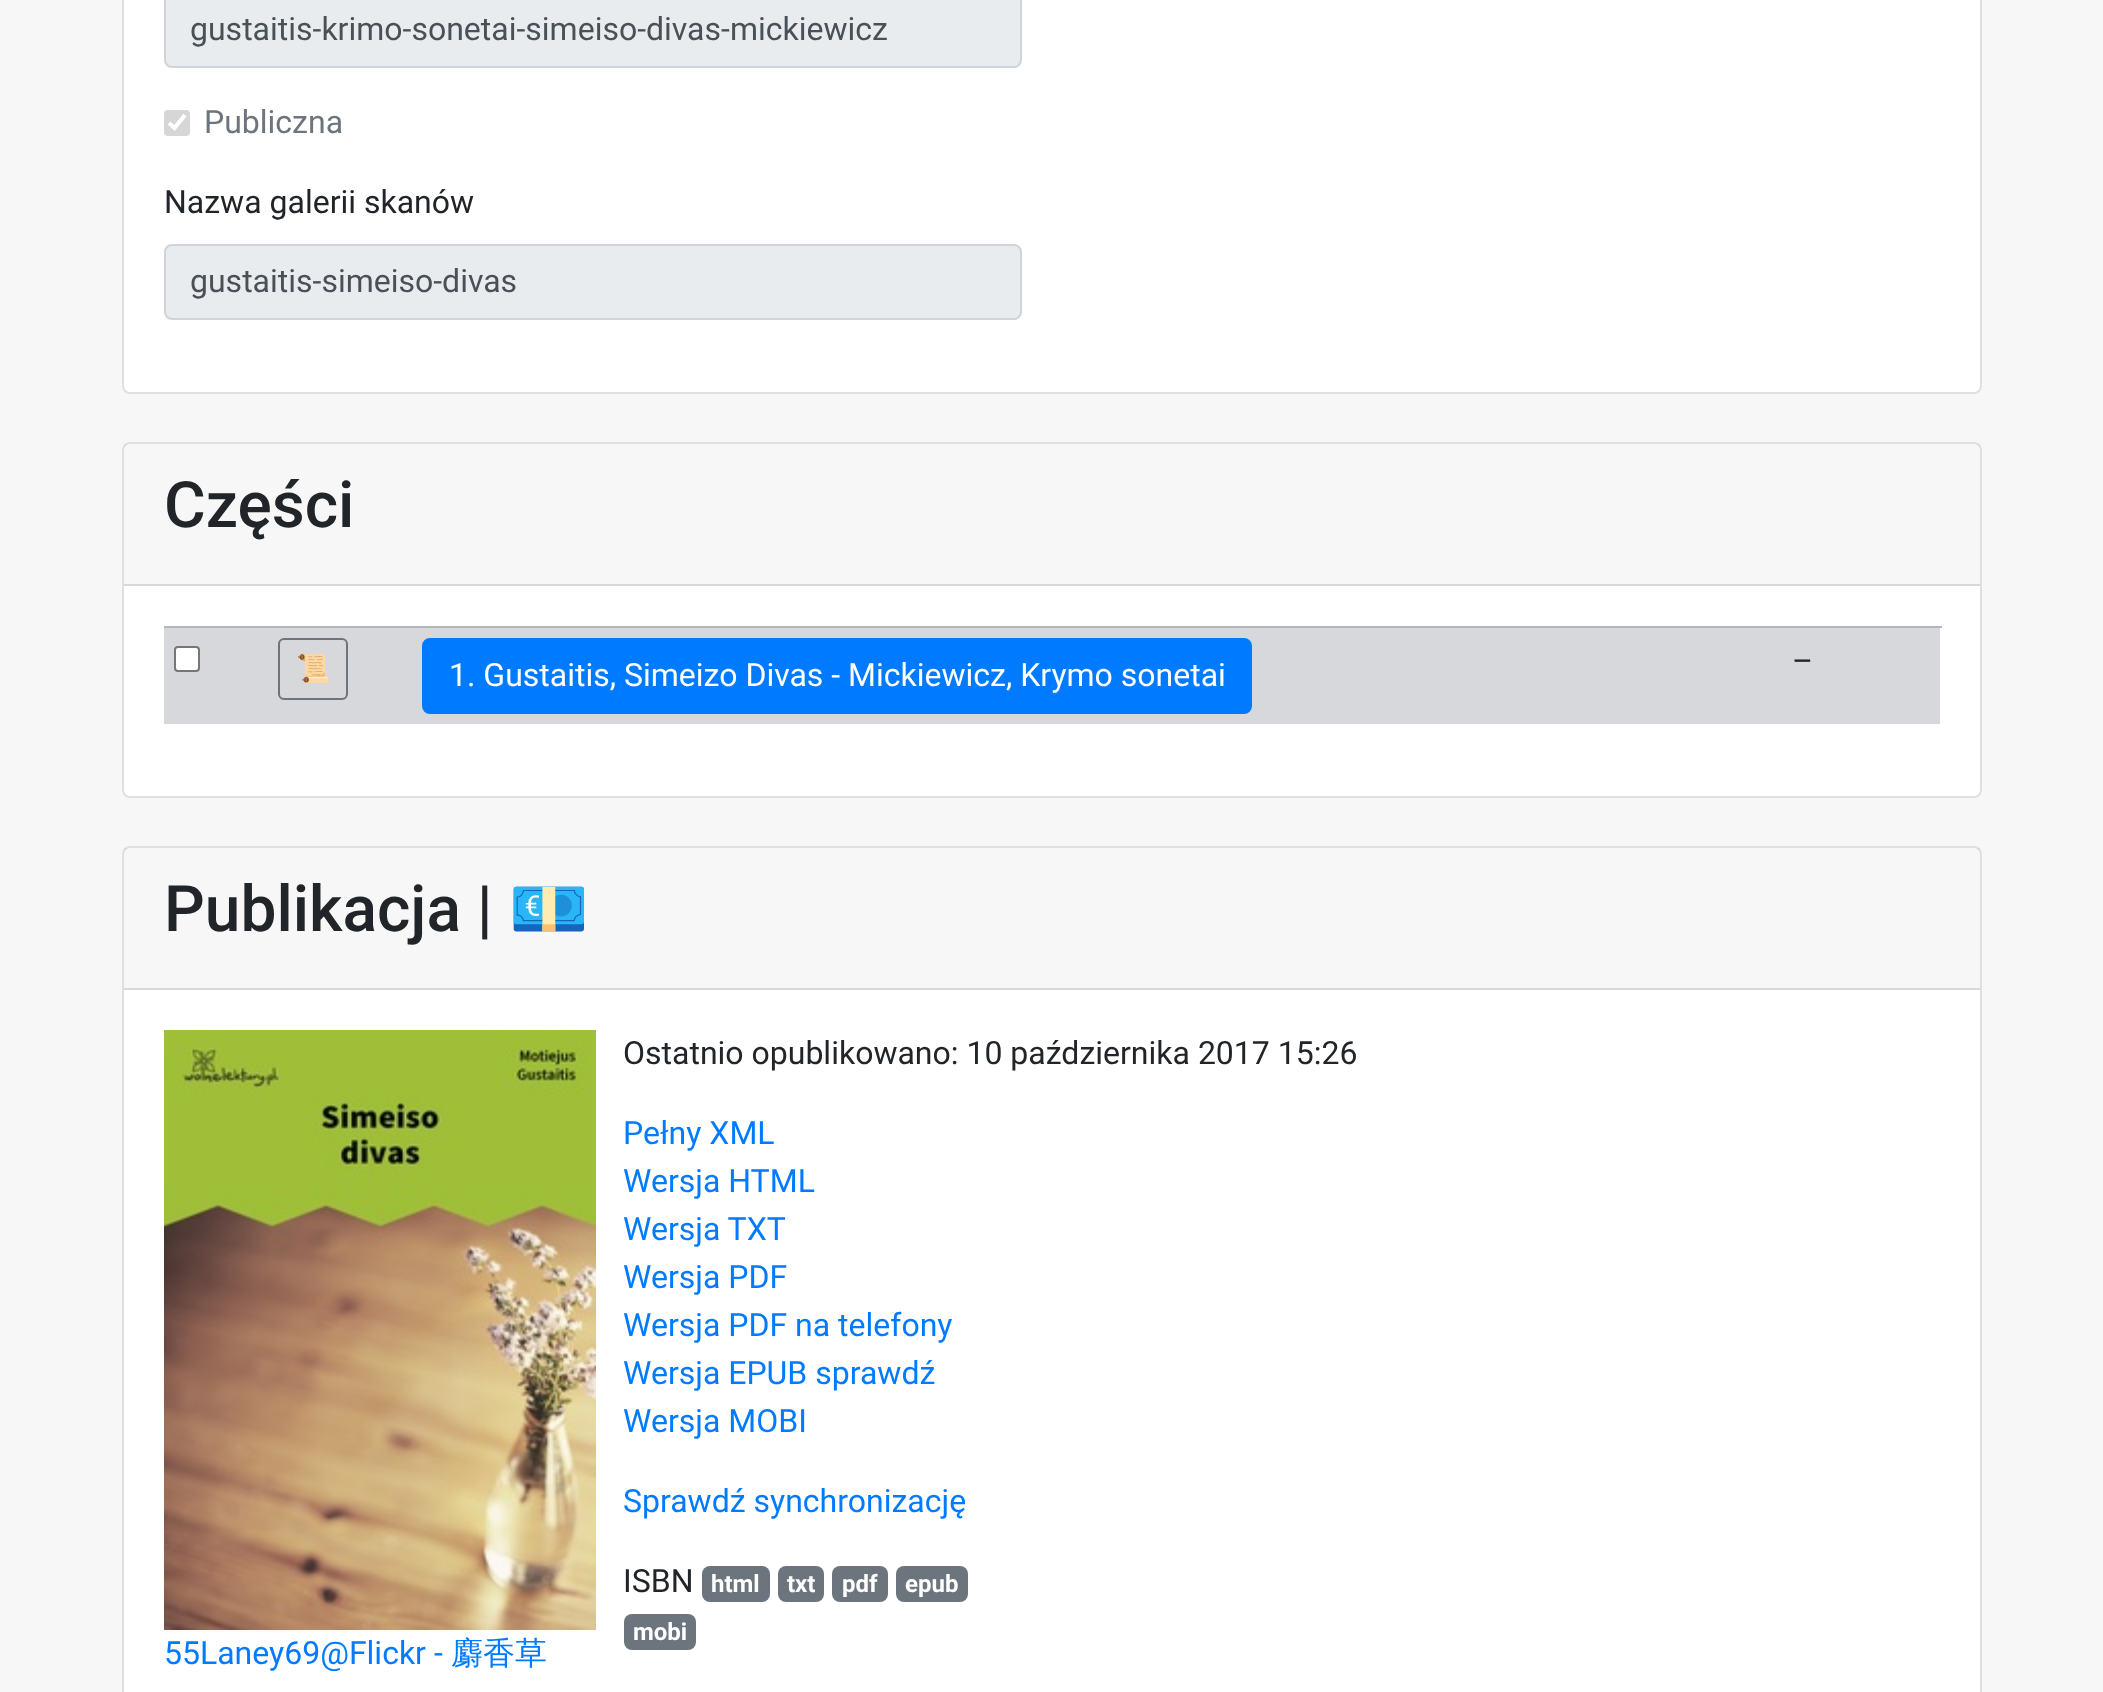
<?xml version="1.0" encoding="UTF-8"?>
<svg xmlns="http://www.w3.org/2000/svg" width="2103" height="1692">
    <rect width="100%" height="100%" fill="#F7F7F7"/>
    <rect x="122" y="-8" width="1860" height="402" rx="8" fill="#FFFFFF"/>
    <rect x="123" y="-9" width="1858" height="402" rx="7" fill="none" stroke="#000000" stroke-opacity="0.12" stroke-width="2"/>
    <rect x="165" y="-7" width="856" height="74" rx="7" fill="#E9ECEF" stroke="#CED4DA" stroke-width="2"/>
    <text x="190" y="40" font-family="Roboto" font-size="32" fill="#495057">gustaitis-krimo-sonetai-simeiso-divas-mickiewicz</text>
    <rect x="164" y="110" width="26" height="26" rx="4" fill="#D6D6D6"/>
    <path d="M 169 123 L 174.5 128 L 185 115" fill="none" stroke="#FFFFFF" stroke-width="4.2"/>
    <text x="204" y="133" font-family="Roboto" font-size="32" fill="#6C757D">Publiczna</text>
    <text x="164" y="213" font-family="Roboto" font-size="32" fill="#212529">Nazwa galerii skanów</text>
    <rect x="165" y="245" width="856" height="74" rx="7" fill="#E9ECEF" stroke="#CED4DA" stroke-width="2"/>
    <text x="190" y="292" font-family="Roboto" font-size="32" fill="#495057">gustaitis-simeiso-divas</text>
    <rect x="122" y="442" width="1860" height="356" rx="8" fill="#FFFFFF"/>
    <rect x="123" y="443" width="1858" height="354" rx="7" fill="none" stroke="#000000" stroke-opacity="0.12" stroke-width="2"/>
    <rect x="124" y="444" width="1856" height="140" fill="#000000" fill-opacity="0.03"/>
    <rect x="124" y="584" width="1856" height="2" fill="#D8D8D8"/>
    <text x="164" y="527" font-family="Roboto" font-size="64" font-weight="500" fill="#212529">Części</text>
    <rect x="164" y="628" width="1776" height="96" fill="#D6D8DB"/>
    <rect x="164" y="626" width="1778" height="2" fill="#B3B7BB"/>
    <rect x="175" y="647" width="24" height="24" rx="3" fill="#FFFFFF" stroke="#767676" stroke-width="2"/>
    <rect x="279" y="639" width="68" height="60" rx="5" fill="none" stroke="#6C757D" stroke-width="2"/>
    <text x="296" y="678" font-family="Noto Color Emoji" font-size="28" fill="#6C757D">📜</text>
    <text x="1792" y="672" font-family="Roboto" font-size="32" fill="#212529">–</text>
    <rect x="423" y="639" width="828" height="74" rx="7" fill="#007BFF" stroke="#007BFF" stroke-width="2"/>
    <text x="449" y="686" font-family="Roboto" font-size="32" fill="#FFFFFF">1. Gustaitis, Simeizo Divas - Mickiewicz, Krymo sonetai</text>
    <rect x="122" y="846" width="1860" height="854" rx="8" fill="#FFFFFF"/>
    <rect x="123" y="847" width="1858" height="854" rx="7" fill="none" stroke="#000000" stroke-opacity="0.12" stroke-width="2"/>
    <rect x="124" y="848" width="1856" height="140" fill="#000000" fill-opacity="0.03"/>
    <rect x="124" y="988" width="1856" height="2" fill="#D8D8D8"/>
    <text x="164" y="931" font-family="Roboto" font-size="64" font-weight="500" fill="#212529">Publikacja |</text>
    <text x="509" y="931" font-family="Noto Color Emoji" font-size="64" fill="#212529">💶</text>
    <text x="623" y="1064" font-family="Roboto" font-size="32" fill="#212529">Ostatnio opublikowano: 10 października 2017 15:26</text>
    <text font-family="Roboto" font-size="32" fill="#007BFF">
        <tspan x="623" y="1144">Pełny XML</tspan>
        <tspan x="623" y="1192">Wersja HTML</tspan>
        <tspan x="623" y="1240">Wersja TXT</tspan>
        <tspan x="623" y="1288">Wersja PDF</tspan>
        <tspan x="623" y="1336">Wersja PDF na telefony</tspan>
        <tspan x="623" y="1384">Wersja EPUB sprawdź</tspan>
        <tspan x="623" y="1432">Wersja MOBI</tspan>
    </text>
    <text x="623" y="1512" font-family="Roboto" font-size="32" fill="#007BFF">Sprawdź synchronizację</text>
    <text x="623" y="1592" font-family="Roboto" font-size="32" fill="#212529">ISBN</text>
    <rect x="702" y="1566" width="68" height="36" rx="8" fill="#6C757D"/>
    <text x="711" y="1592" font-family="Roboto" font-size="24" font-weight="700" fill="#FFFFFF">html</text>
    <rect x="778" y="1566" width="46" height="36" rx="8" fill="#6C757D"/>
    <text x="787" y="1592" font-family="Roboto" font-size="24" font-weight="700" fill="#FFFFFF">txt</text>
    <rect x="832" y="1566" width="56" height="36" rx="8" fill="#6C757D"/>
    <text x="842" y="1592" font-family="Roboto" font-size="24" font-weight="700" fill="#FFFFFF">pdf</text>
    <rect x="896" y="1566" width="72" height="36" rx="8" fill="#6C757D"/>
    <text x="905" y="1592" font-family="Roboto" font-size="24" font-weight="700" fill="#FFFFFF">epub</text>
    <rect x="624" y="1614" width="72" height="36" rx="8" fill="#6C757D"/>
    <text x="633" y="1640" font-family="Roboto" font-size="24" font-weight="700" fill="#FFFFFF">mobi</text>
    <image x="164" y="1030" width="432" height="600" href="img_01.png"/>
    <text x="164" y="1664" font-family="Roboto" font-size="32" fill="#007BFF">55Laney69@Flickr -</text>
    <text x="451" y="1664" font-family="WenQuanYi Zen Hei" font-size="32" font-weight="500" fill="#007BFF">麝香草</text>
</svg>
